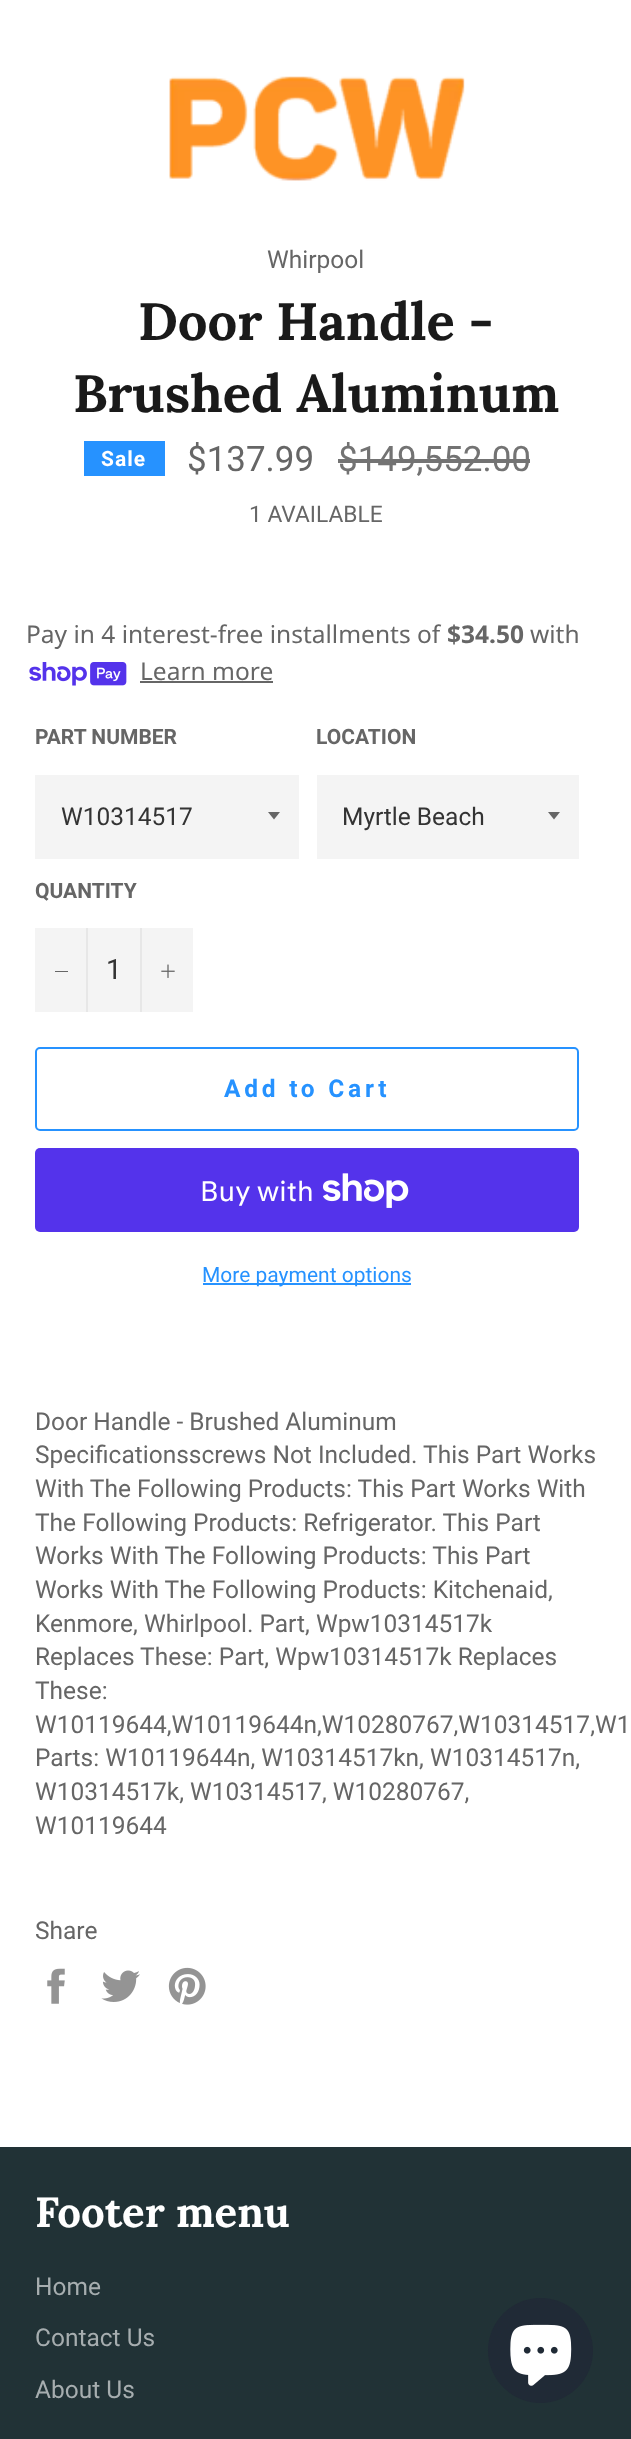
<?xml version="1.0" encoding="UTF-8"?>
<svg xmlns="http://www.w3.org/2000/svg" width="631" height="2439">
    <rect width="100%" height="100%" fill="#FFFFFF"/>
    <image x="169" y="76" width="296" height="105" href="img_01.png"/>
    <text x="267" y="268" font-family="Roboto" font-size="24.5" fill="#666666">Whirpool</text>
    <text x="138" y="340" font-family="Lora" font-size="52.5" font-weight="700" fill="#1A1A1A">Door Handle -</text>
    <text x="73" y="412" font-family="Lora" font-size="52.5" font-weight="700" fill="#1A1A1A">Brushed Aluminum</text>
    <rect x="84" y="441" width="81" height="35" fill="#2692FF"/>
    <text x="101" y="466" font-family="Roboto" font-size="21" font-weight="700" letter-spacing="1" fill="#FFFFFF">Sale</text>
    <text x="187" y="471" font-family="Roboto" font-size="35" fill="#666666">$137.99</text>
    <text x="338" y="471" font-family="Roboto" font-size="35" fill="#737373">$149,552.00</text>
    <rect x="338" y="459" width="192" height="4" fill="#737373"/>
    <text x="249" y="522" font-family="Roboto" font-size="22.75" fill="#666666">1 AVAILABLE</text>
    <text x="26" y="643" font-family="Noto Sans" font-size="24.5" fill="#666666">Pay in 4 interest-free installments of</text>
    <text x="447" y="643" font-family="Noto Sans" font-size="24.5" font-weight="700" fill="#666666">$34.50</text>
    <text x="530" y="643" font-family="Noto Sans" font-size="24.5" fill="#666666">with</text>
    <image x="29" y="662" width="98" height="24" href="img_02.png"/>
    <text x="140" y="680" font-family="Noto Sans" font-size="24.5" fill="#666666">Learn more</text>
    <rect x="140" y="681" width="133" height="2" fill="#666666"/>
    <text x="35" y="744" font-family="Roboto" font-size="21" font-weight="700" fill="#666666">PART NUMBER</text>
    <rect x="35" y="775" width="264" height="84" fill="#F4F4F4"/>
    <path d="M 268 812 L 274 819.5 L 280 812 Z" fill="#666666"/>
    <text x="61" y="825" font-family="Roboto" font-size="24.5" fill="#333333">W10314517</text>
    <text x="316" y="744" font-family="Roboto" font-size="21" font-weight="700" fill="#666666">LOCATION</text>
    <rect x="317" y="775" width="262" height="84" fill="#F4F4F4"/>
    <path d="M 548 812 L 554 819.5 L 560 812 Z" fill="#666666"/>
    <text x="342" y="825" font-family="Roboto" font-size="24.5" fill="#333333">Myrtle Beach</text>
    <text x="35" y="898" font-family="Roboto" font-size="21" font-weight="700" fill="#666666">QUANTITY</text>
    <rect x="35" y="928" width="158" height="84" fill="#F4F4F4"/>
    <rect x="86" y="928" width="2" height="84" fill="#E7E7E7"/>
    <rect x="55" y="971" width="13" height="1" fill="#666666"/>
    <text x="106" y="979" font-family="Roboto" font-size="28" fill="#333333">1</text>
    <rect x="140" y="928" width="2" height="84" fill="#E7E7E7"/>
    <image x="161" y="964" width="14" height="14" href="img_03.png"/>
    <rect x="36" y="1048" width="542" height="82" rx="4" fill="none" stroke="#2692FF" stroke-width="2"/>
    <text x="224" y="1097" font-family="Roboto" font-size="24.5" font-weight="700" letter-spacing="3.75" fill="#2692FF">Add to Cart</text>
    <rect x="35" y="1148" width="544" height="84" rx="5" fill="#5433EB"/>
    <text x="200" y="1201" font-family="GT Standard" font-size="28" fill="#FFFFFF">Buy with</text>
    <image x="323" y="1173" width="86" height="35" href="img_04.png"/>
    <rect x="203" y="1283" width="208" height="2" fill="#2692FF"/>
    <text x="202" y="1282" font-family="Roboto" font-size="21" fill="#2692FF">More payment options</text>
    <text font-family="Roboto" font-size="24.5" fill="#666666">
        <tspan x="35" y="1430">Door Handle - Brushed Aluminum</tspan>
        <tspan x="35" y="1463">Specificationsscrews Not Included. This Part Works</tspan>
        <tspan x="35" y="1497">With The Following Products: This Part Works With</tspan>
        <tspan x="35" y="1531">The Following Products: Refrigerator. This Part</tspan>
        <tspan x="35" y="1564">Works With The Following Products: This Part</tspan>
        <tspan x="35" y="1598">Works With The Following Products: Kitchenaid,</tspan>
        <tspan x="35" y="1632">Kenmore, Whirlpool. Part, Wpw10314517k</tspan>
        <tspan x="35" y="1665">Replaces These: Part, Wpw10314517k Replaces</tspan>
        <tspan x="35" y="1699">These:</tspan>
        <tspan x="35" y="1733">W10119644,W10119644n,W10280767,W10314517,W1</tspan>
        <tspan x="35" y="1766">Parts: W10119644n, W10314517kn, W10314517n,</tspan>
        <tspan x="35" y="1800">W10314517k, W10314517, W10280767,</tspan>
        <tspan x="35" y="1834">W10119644</tspan>
    </text>
    <text x="35" y="1939" font-family="Roboto" font-size="24.5" fill="#666666">Share</text>
    <image x="47" y="1968" width="18" height="36" href="img_05.png"/>
    <image x="101" y="1970" width="39" height="32" href="img_06.png"/>
    <image x="168" y="1967" width="38" height="38" href="img_07.png"/>
    <rect x="0" y="2147" width="631" height="292" fill="#213236"/>
    <text x="35" y="2227" font-family="Lora" font-size="42" font-weight="700" fill="#FFFFFF">Footer menu</text>
    <text x="35" y="2295" font-family="Roboto" font-size="24.5" fill="#A6ADAF">Home</text>
    <text x="35" y="2346" font-family="Roboto" font-size="24.5" fill="#A6ADAF">Contact Us</text>
    <text x="35" y="2398" font-family="Roboto" font-size="24.5" fill="#A6ADAF">About Us</text>
    <circle cx="540.5" cy="2350.5" r="52.5" fill="#202A36"/>
    <image x="510" y="2324" width="62" height="62" href="img_08.png"/>
</svg>
